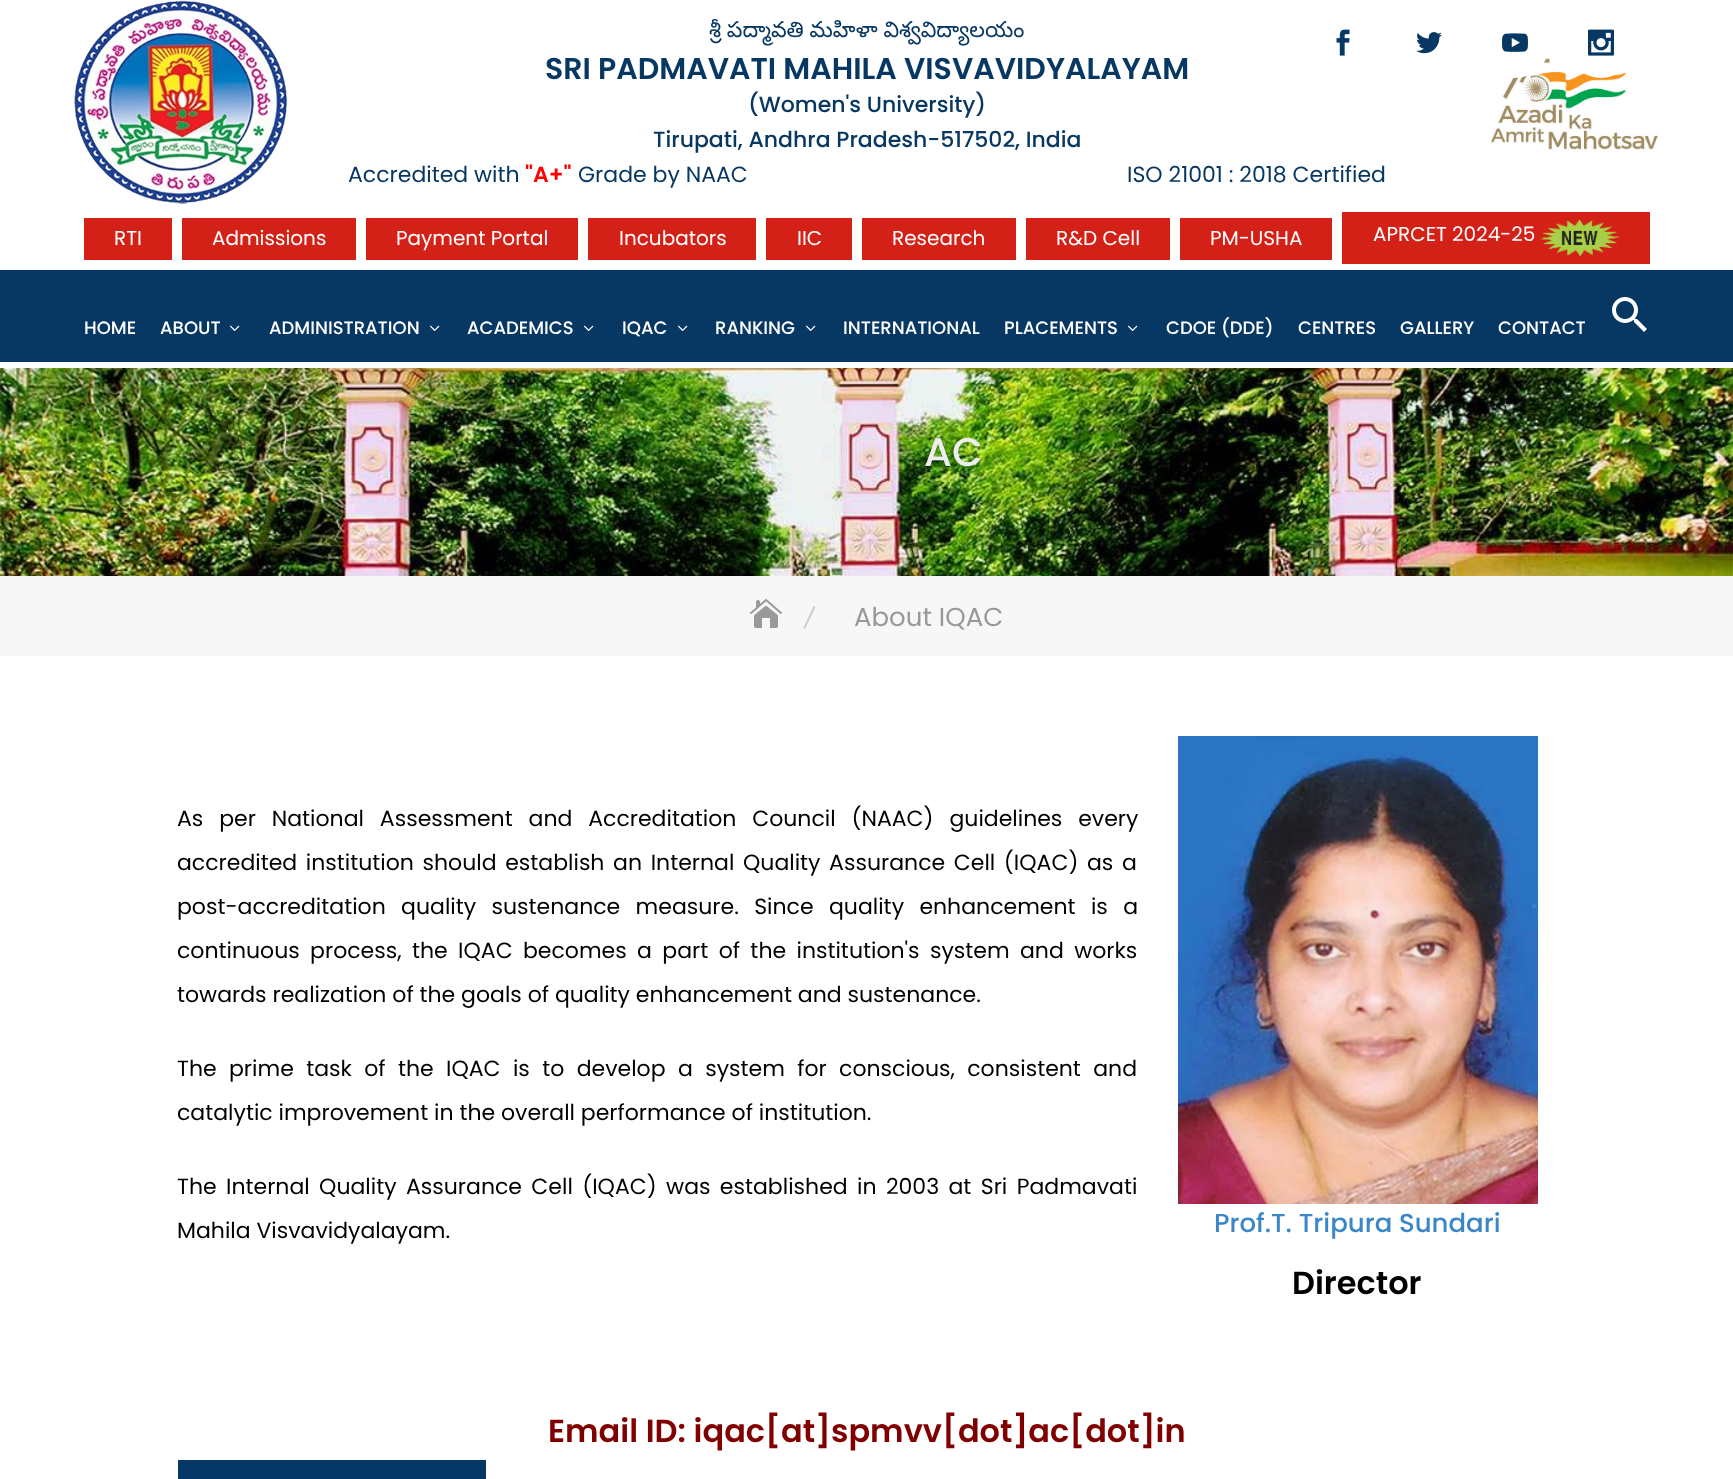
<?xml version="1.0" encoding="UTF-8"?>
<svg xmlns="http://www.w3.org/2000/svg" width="1733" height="1479">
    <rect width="100%" height="100%" fill="#FFFFFF"/>
    <image x="1336" y="29" width="14" height="27" href="img_01.png"/>
    <image x="1416" y="32" width="26" height="22" href="img_02.png"/>
    <image x="1491" y="56" width="168" height="94" href="img_06.png"/>
    <circle cx="1515" cy="43" r="35" fill="#FFFFFF"/>
    <image x="1502" y="33" width="26" height="19" href="img_03.png"/>
    <circle cx="1601" cy="43" r="35" fill="#FFFFFF"/>
    <image x="1588" y="29" width="26" height="27" href="img_04.png"/>
    <image x="74" y="0" width="214" height="204" href="img_05.png"/>
    <text x="709" y="37" word-spacing="-0.5" font-family="Noto Sans Telugu" font-size="22" fill="#073763">శ్రీ పద్మావతి మహిళా విశ్వవిద్యాలయం</text>
    <text x="545" y="79" font-family="Poppins" font-size="30" font-weight="600" fill="#073763">SRI PADMAVATI MAHILA VISVAVIDYALAYAM</text>
    <text x="748" y="112" font-family="Poppins" font-size="22" font-weight="500" fill="#073763">(Women's University)</text>
    <text x="653" y="147" font-family="Poppins" font-size="22" font-weight="500" fill="#073763">Tirupati, Andhra Pradesh-517502, India</text>
    <text x="348" y="182" font-family="Poppins" font-size="22" fill="#073763">Accredited with</text>
    <text x="525" y="182" font-family="Poppins" font-size="22" font-weight="600" fill="#FF0000">"A+"</text>
    <text x="578" y="182" font-family="Poppins" font-size="22" fill="#073763">Grade by NAAC</text>
    <text x="1127" y="182" font-family="Poppins" font-size="22" fill="#073763">ISO 21001 : 2018 Certified</text>
    <rect x="84" y="218" width="88" height="42" fill="#D42118"/>
    <text x="114" y="245" font-family="Poppins" font-size="20" fill="#FFFFFF">RTI</text>
    <rect x="182" y="218" width="174" height="42" fill="#D42118"/>
    <text x="212" y="245" font-family="Poppins" font-size="20" fill="#FFFFFF">Admissions</text>
    <rect x="366" y="218" width="212" height="42" fill="#D42118"/>
    <text x="396" y="245" font-family="Poppins" font-size="20" fill="#FFFFFF">Payment Portal</text>
    <rect x="588" y="218" width="168" height="42" fill="#D42118"/>
    <text x="619" y="245" font-family="Poppins" font-size="20" fill="#FFFFFF">Incubators</text>
    <rect x="766" y="218" width="86" height="42" fill="#D42118"/>
    <text x="797" y="245" font-family="Poppins" font-size="20" fill="#FFFFFF">IIC</text>
    <rect x="862" y="218" width="154" height="42" fill="#D42118"/>
    <text x="892" y="245" font-family="Poppins" font-size="20" fill="#FFFFFF">Research</text>
    <rect x="1026" y="218" width="144" height="42" fill="#D42118"/>
    <text x="1056" y="245" font-family="Poppins" font-size="20" fill="#FFFFFF">R&amp;D Cell</text>
    <rect x="1180" y="218" width="152" height="42" fill="#D42118"/>
    <text x="1210" y="245" font-family="Poppins" font-size="20" fill="#FFFFFF">PM-USHA</text>
    <rect x="1342" y="212" width="308" height="52" fill="#D42118"/>
    <text x="1373" y="241" font-family="Poppins" font-size="20" fill="#FFFFFF">APRCET 2024-25</text>
    <image x="1540" y="219" width="80" height="38" href="img_07.png"/>
    <rect x="0" y="270" width="1733" height="92" fill="#073763"/>
    <text x="84" y="334" font-family="Poppins" font-size="18" font-weight="500" fill="#FFFFFF">HOME</text>
    <text x="160" y="334" font-family="Poppins" font-size="18" font-weight="500" fill="#FFFFFF">ABOUT</text>
    <image x="230" y="325" width="10" height="6" href="img_08.png"/>
    <text x="269" y="334" font-family="Poppins" font-size="18" font-weight="500" fill="#FFFFFF">ADMINISTRATION</text>
    <image x="430" y="325" width="10" height="6" href="img_08.png"/>
    <text x="467" y="334" font-family="Poppins" font-size="18" font-weight="500" fill="#FFFFFF">ACADEMICS</text>
    <image x="584" y="325" width="10" height="6" href="img_08.png"/>
    <text x="622" y="334" font-family="Poppins" font-size="18" font-weight="500" fill="#FFFFFF">IQAC</text>
    <image x="678" y="325" width="10" height="6" href="img_08.png"/>
    <text x="715" y="334" font-family="Poppins" font-size="18" font-weight="500" fill="#FFFFFF">RANKING</text>
    <image x="806" y="325" width="10" height="6" href="img_08.png"/>
    <text x="843" y="334" font-family="Poppins" font-size="18" font-weight="500" fill="#FFFFFF">INTERNATIONAL</text>
    <text x="1004" y="334" font-family="Poppins" font-size="18" font-weight="500" fill="#FFFFFF">PLACEMENTS</text>
    <image x="1128" y="325" width="10" height="6" href="img_08.png"/>
    <text x="1166" y="334" font-family="Poppins" font-size="18" font-weight="500" fill="#FFFFFF">CDOE (DDE)</text>
    <text x="1298" y="334" font-family="Poppins" font-size="18" font-weight="500" fill="#FFFFFF">CENTRES</text>
    <text x="1400" y="334" font-family="Poppins" font-size="18" font-weight="500" fill="#FFFFFF">GALLERY</text>
    <text x="1498" y="334" font-family="Poppins" font-size="18" font-weight="500" fill="#FFFFFF">CONTACT</text>
    <image x="1612" y="297" width="35" height="35" href="img_09.png"/>
    <image x="0" y="368" width="1733" height="208" href="img_10.png"/>
    <text x="924" y="466" font-family="Poppins" font-size="40" font-weight="500" fill="#EFEEEE">AC</text>
    <rect x="0" y="576" width="1733" height="80" fill="#F7F7F7"/>
    <image x="750" y="599" width="32" height="29" href="img_11.png"/>
    <path d="M 813.5 606 L 815.5 607 L 805 629 L 803.5 628 Z" fill="#CCCCCC"/>
    <text x="854" y="626" font-family="Poppins" font-size="26" fill="#999999">About IQAC</text>
    <text x="177" y="826" word-spacing="10" font-family="Poppins" font-size="22" fill="#000000">As per National Assessment and Accreditation Council (NAAC) guidelines every</text>
    <text x="177" y="870" word-spacing="2.75" font-family="Poppins" font-size="22" fill="#000000">accredited institution should establish an Internal Quality Assurance Cell (IQAC) as a</text>
    <text x="177" y="914" word-spacing="9.5" font-family="Poppins" font-size="22" fill="#000000">post-accreditation quality sustenance measure. Since quality enhancement is a</text>
    <text x="177" y="958" word-spacing="4.5" font-family="Poppins" font-size="22" fill="#000000">continuous process, the IQAC becomes a part of the institution's system and works</text>
    <text x="177" y="1002" font-family="Poppins" font-size="22" fill="#000000">towards realization of the goals of quality enhancement and sustenance.</text>
    <text x="177" y="1076" word-spacing="6.5" font-family="Poppins" font-size="22" fill="#000000">The prime task of the IQAC is to develop a system for conscious, consistent and</text>
    <text x="177" y="1120" font-family="Poppins" font-size="22" fill="#000000">catalytic improvement in the overall performance of institution.</text>
    <text x="177" y="1194" word-spacing="3.5" font-family="Poppins" font-size="22" fill="#000000">The Internal Quality Assurance Cell (IQAC) was established in 2003 at Sri Padmavati</text>
    <text x="177" y="1238" font-family="Poppins" font-size="22" fill="#000000">Mahila Visvavidyalayam.</text>
    <image x="1178" y="736" width="360" height="468" href="img_12.png"/>
    <text x="1214" y="1232" font-family="Poppins" font-size="26" font-weight="500" fill="#3B86C9">Prof.T. Tripura Sundari</text>
    <text x="1292" y="1294" font-family="Poppins" font-size="32" font-weight="600" fill="#000000">Director</text>
    <text x="548" y="1442" font-family="Poppins" font-size="32" font-weight="600" fill="#800000">Email ID: iqac[at]spmvv[dot]ac[dot]in</text>
    <rect x="178" y="1460" width="308" height="19" fill="#063866"/>
</svg>
